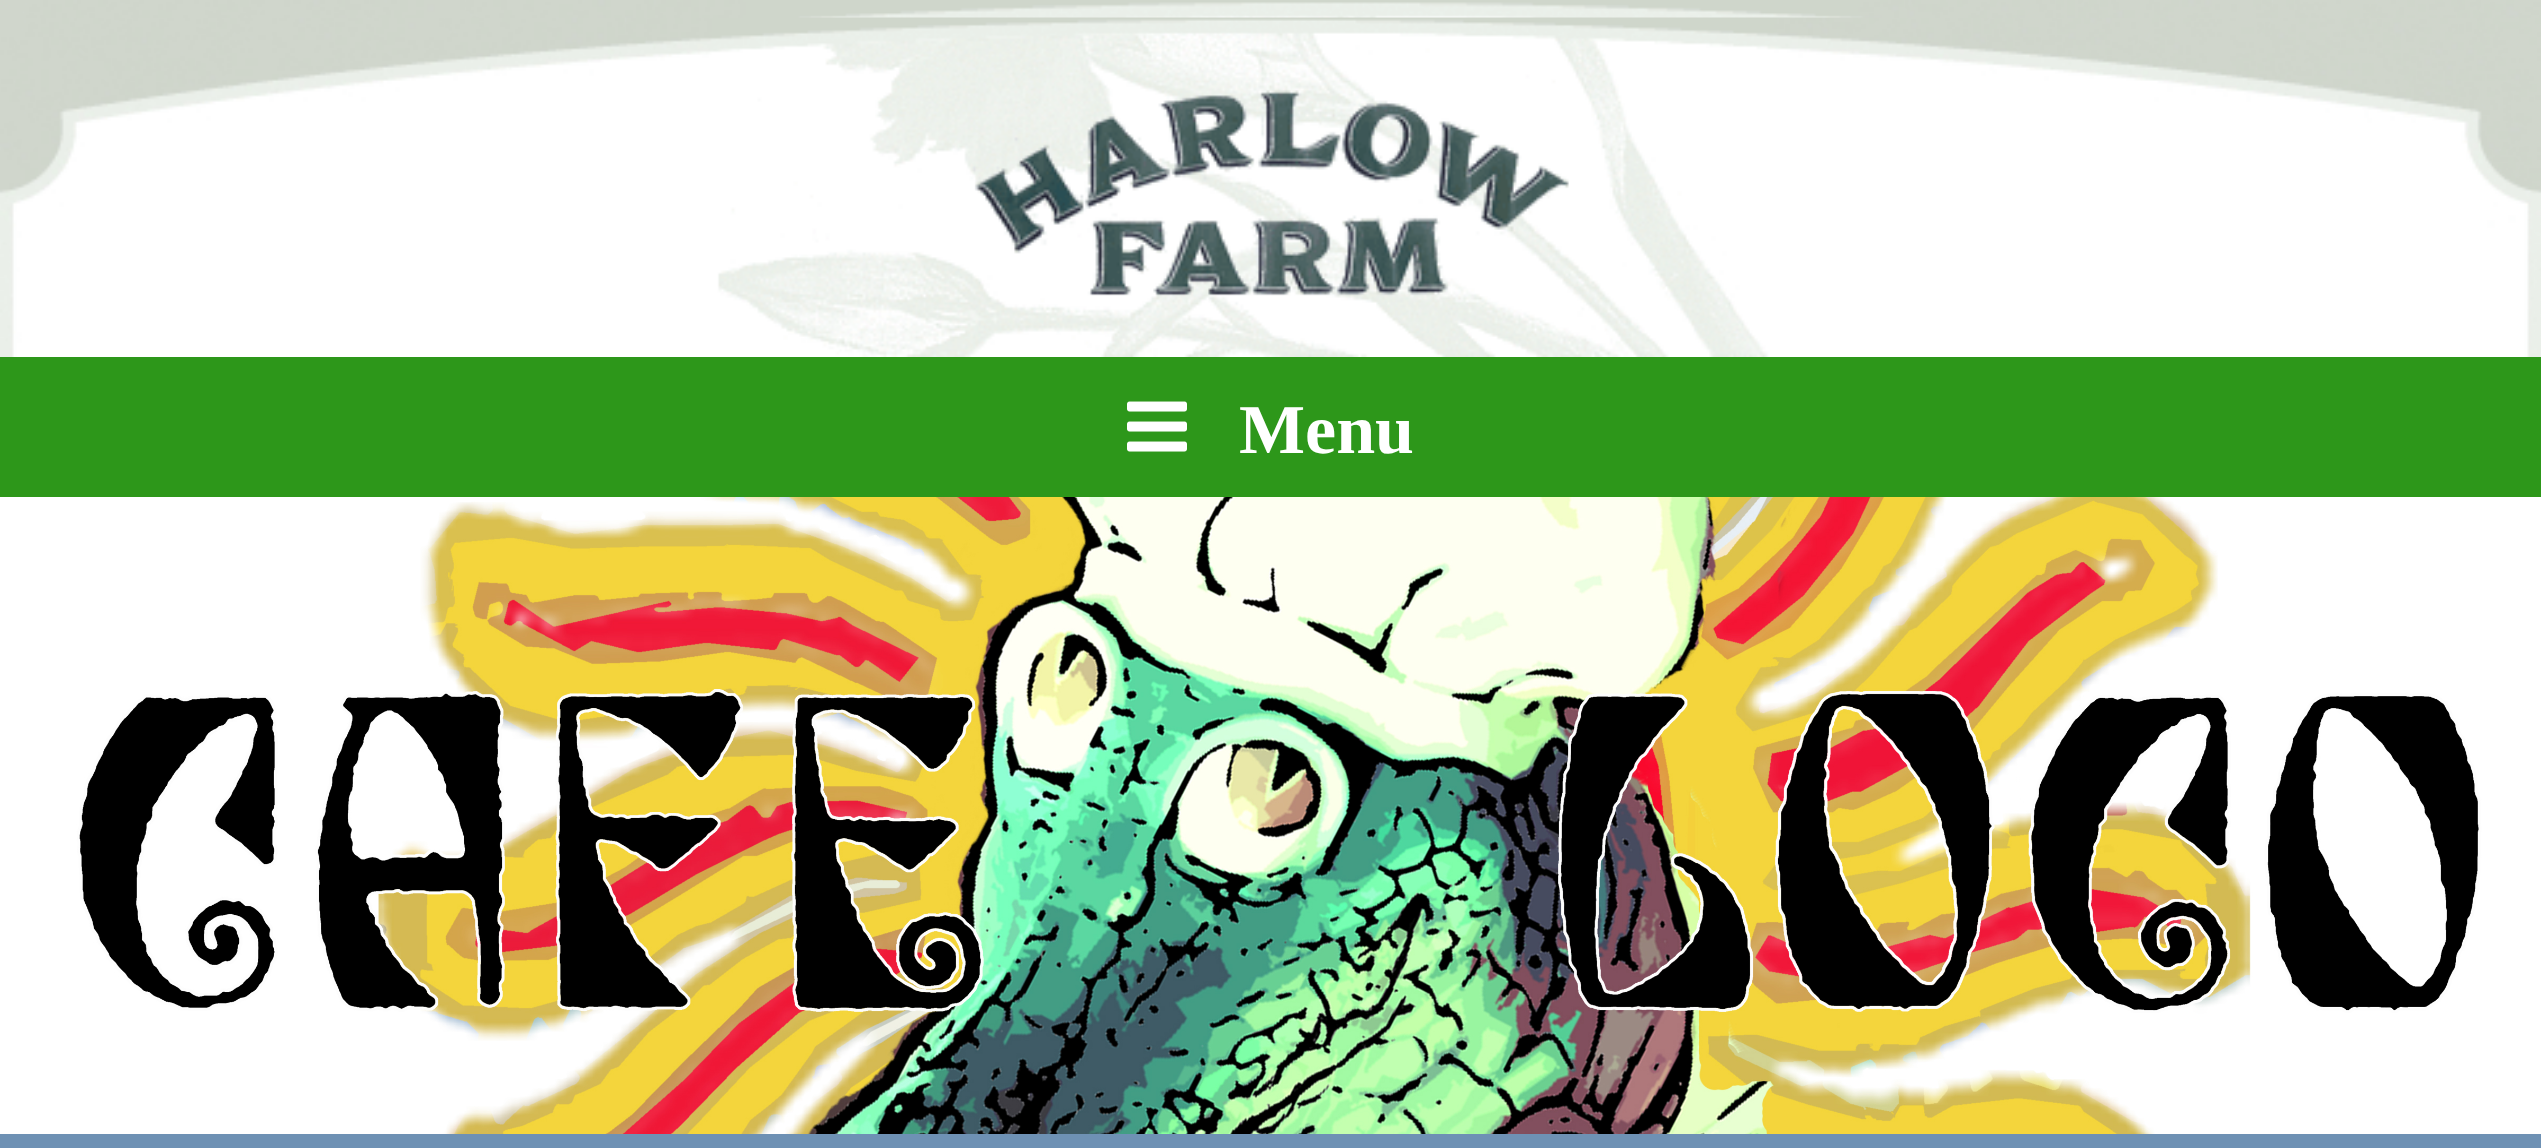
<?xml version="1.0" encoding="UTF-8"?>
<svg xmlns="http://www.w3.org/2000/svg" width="2541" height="1148">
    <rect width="100%" height="100%" fill="#2D971A"/>
    <image x="0" y="0" width="2541" height="18" href="img_01.png"/>
    <image x="0" y="17" width="2541" height="340" href="img_02.png"/>
    <image x="1127" y="401" width="60" height="51" href="img_03.png"/>
    <text x="1239" y="453" font-family="Liberation Serif" font-size="70" font-weight="700" fill="#FFFFFF">Menu</text>
    <rect x="0" y="1134" width="2541" height="14" fill="#6E91B4"/>
    <image x="0" y="497" width="2541" height="637" href="img_04.png"/>
</svg>
